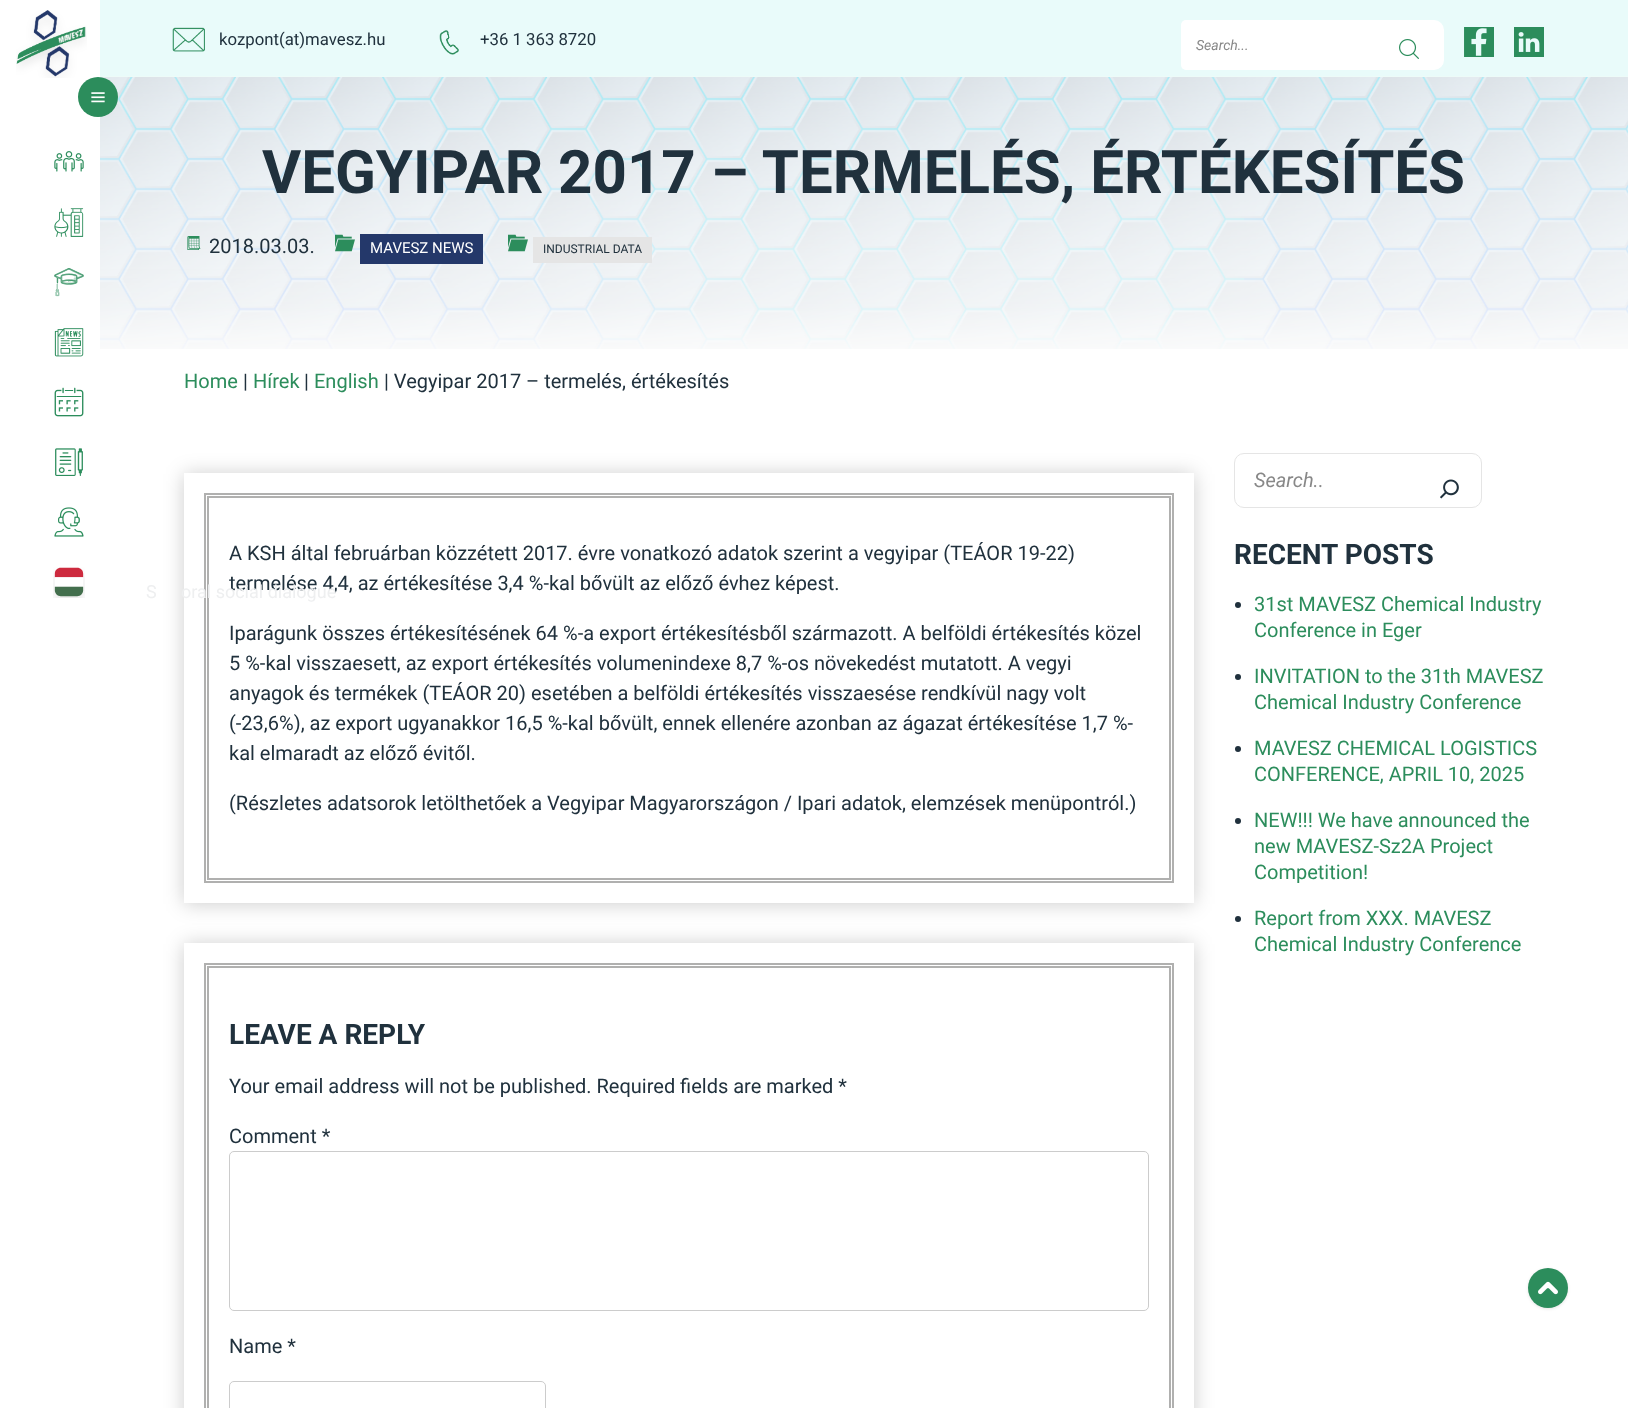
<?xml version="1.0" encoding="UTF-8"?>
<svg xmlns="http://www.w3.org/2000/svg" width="1628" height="1408">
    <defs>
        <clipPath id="clip1"><path d="M 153 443 H 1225 V 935 H 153 Z M 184 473 H 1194 V 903 H 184 Z" clip-rule="evenodd"/></clipPath>
        <filter id="blur1" x="-50%" y="-200%" width="200%" height="500%"><feGaussianBlur stdDeviation="10"/></filter>
        <clipPath id="clip2"><path d="M 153 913 H 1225 V 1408 H 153 Z M 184 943 H 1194 V 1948 H 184 Z" clip-rule="evenodd"/></clipPath>
        <filter id="blur2" x="-50%" y="-200%" width="200%" height="500%"><feGaussianBlur stdDeviation="1.5"/></filter>
    </defs>
    <rect width="100%" height="100%" fill="#FFFFFF"/>
    <rect x="100" y="0" width="1528" height="76" fill="#E9FBFA"/>
    <rect x="100" y="76" width="1528" height="1" fill="#EDFBF8"/>
    <image x="172" y="27" width="33" height="25" href="img_01.png"/>
    <text x="219" y="45" font-family="Roboto" font-size="16.75" fill="#20313D">kozpont(at)mavesz.hu</text>
    <image x="439" y="30" width="20" height="25" href="img_02.png"/>
    <text x="480" y="45" font-family="Roboto" font-size="16.75" fill="#20313D">+36 1 363 8720</text>
    <rect x="1181" y="20" width="263" height="50" rx="10" fill="#FFFFFF"/>
    <rect x="1181" y="20" width="189" height="50" rx="5" fill="#FFFFFF"/>
    <text x="1196" y="50" font-family="Roboto" font-size="14" font-style="italic" fill="#888888">Search...</text>
    <image x="1399" y="39" width="20" height="20" href="img_03.png"/>
    <image x="1464" y="27" width="30" height="30" href="img_04.png"/>
    <image x="1514" y="27" width="30" height="30" href="img_05.png"/>
    <image x="100" y="77" width="1528" height="272" href="img_06.png"/>
    <text x="262" y="193" font-family="Roboto" font-size="60" font-weight="700" fill="#20313D">VEGYIPAR 2017 – TERMELÉS, ÉRTÉKESÍTÉS</text>
    <image x="187" y="236" width="14" height="14" href="img_07.png"/>
    <text x="209" y="253" font-family="Roboto" font-size="20" fill="#20313D">2018.03.03.</text>
    <image x="335" y="234" width="20" height="18" href="img_08.png"/>
    <rect x="360" y="234" width="123" height="30" fill="#24386A"/>
    <text x="370" y="253" font-family="Roboto" font-size="15" fill="#FFFFFF">MAVESZ NEWS</text>
    <image x="508" y="234" width="20" height="18" href="img_09.png"/>
    <rect x="533" y="237" width="119" height="26" fill="#E5E5E5"/>
    <text x="543" y="253" font-family="Roboto" font-size="12" fill="#20313D">INDUSTRIAL DATA</text>
    <text x="184" y="388" font-family="Roboto" font-size="20" fill="#2C8D5C">Home</text>
    <text x="243" y="388" font-family="Roboto" font-size="20" fill="#20313D">|</text>
    <text x="253" y="388" font-family="Roboto" font-size="20" fill="#2C8D5C">Hírek</text>
    <text x="304" y="388" font-family="Roboto" font-size="20" fill="#20313D">|</text>
    <text x="314" y="388" font-family="Roboto" font-size="20" fill="#2C8D5C">English</text>
    <text x="384" y="388" font-family="Roboto" font-size="20" fill="#20313D">| Vegyipar 2017 – termelés, értékesítés</text>
    <g clip-path="url(#clip1)">
        <rect x="184" y="474" width="1010" height="430" fill="#000000" fill-opacity="0.2" filter="url(#blur1)"/>
    </g>
    <rect x="205" y="494" width="968" height="388" fill="none" stroke="#B0B0AF" stroke-width="2"/>
    <rect x="208" y="497" width="962" height="382" fill="none" stroke="#B0B0AF" stroke-width="2"/>
    <text font-family="Roboto" font-size="20" fill="#20313D">
        <tspan x="229" y="560">A KSH által februárban közzétett 2017. évre vonatkozó adatok szerint a vegyipar (TEÁOR 19-22)</tspan>
        <tspan x="229" y="590">termelése 4,4, az értékesítése 3,4 %-kal bővült az előző évhez képest.</tspan>
    </text>
    <text font-family="Roboto" font-size="20" fill="#20313D">
        <tspan x="229" y="640">Iparágunk összes értékesítésének 64 %-a export értékesítésből származott. A belföldi értékesítés közel</tspan>
        <tspan x="229" y="670">5 %-kal visszaesett, az export értékesítés volumenindexe 8,7 %-os növekedést mutatott. A vegyi</tspan>
        <tspan x="229" y="700">anyagok és termékek (TEÁOR 20) esetében a belföldi értékesítés visszaesése rendkívül nagy volt</tspan>
        <tspan x="229" y="730">(-23,6%), az export ugyanakkor 16,5 %-kal bővült, ennek ellenére azonban az ágazat értékesítése 1,7 %-</tspan>
        <tspan x="229" y="760">kal elmaradt az előző évitől.</tspan>
    </text>
    <text x="229" y="810" font-family="Roboto" font-size="20" fill="#20313D">(Részletes adatsorok letölthetőek a Vegyipar Magyarországon / Ipari adatok, elemzések menüpontról.)</text>
    <g clip-path="url(#clip2)">
        <rect x="184" y="944" width="1010" height="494" fill="#000000" fill-opacity="0.2" filter="url(#blur1)"/>
    </g>
    <rect x="205" y="964" width="968" height="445" fill="none" stroke="#B0B0AF" stroke-width="2"/>
    <rect x="208" y="967" width="962" height="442" fill="none" stroke="#B0B0AF" stroke-width="2"/>
    <text x="229" y="1044" font-family="Roboto" font-size="28" font-weight="700" fill="#20313D">LEAVE A REPLY</text>
    <text x="229" y="1093" font-family="Roboto" font-size="20" fill="#20313D">Your email address will not be published. Required fields are marked *</text>
    <text x="229" y="1143" font-family="Roboto" font-size="20" fill="#20313D">Comment *</text>
    <rect x="229.5" y="1151.5" width="919" height="159" rx="4.5" fill="none" stroke="#CCCCCC"/>
    <text x="229" y="1353" font-family="Roboto" font-size="20" fill="#20313D">Name *</text>
    <rect x="229.5" y="1381.5" width="316" height="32" rx="4.5" fill="none" stroke="#CCCCCC"/>
    <rect x="1234.5" y="453.5" width="247" height="54" rx="9.5" fill="none" stroke="#E5E5E5"/>
    <text x="1254" y="487" font-family="Roboto" font-size="20" font-style="italic" fill="#888888">Search..</text>
    <image x="1440" y="479" width="19" height="20" href="img_10.png"/>
    <text x="1234" y="564" font-family="Roboto" font-size="28" font-weight="700" fill="#20313D">RECENT POSTS</text>
    <circle cx="1238" cy="605" r="3" fill="#20313D"/>
    <text font-family="Roboto" font-size="20" fill="#2C8D5C">
        <tspan x="1254" y="611">31st MAVESZ Chemical Industry</tspan>
        <tspan x="1254" y="637">Conference in Eger</tspan>
    </text>
    <circle cx="1238" cy="677" r="3" fill="#20313D"/>
    <text font-family="Roboto" font-size="20" fill="#2C8D5C">
        <tspan x="1254" y="683">INVITATION to the 31th MAVESZ</tspan>
        <tspan x="1254" y="709">Chemical Industry Conference</tspan>
    </text>
    <circle cx="1238" cy="749" r="3" fill="#20313D"/>
    <text font-family="Roboto" font-size="20" fill="#2C8D5C">
        <tspan x="1254" y="755">MAVESZ CHEMICAL LOGISTICS</tspan>
        <tspan x="1254" y="781">CONFERENCE, APRIL 10, 2025</tspan>
    </text>
    <circle cx="1238" cy="821" r="3" fill="#20313D"/>
    <text font-family="Roboto" font-size="20" fill="#2C8D5C">
        <tspan x="1254" y="827">NEW!!! We have announced the</tspan>
        <tspan x="1254" y="853">new MAVESZ-Sz2A Project</tspan>
        <tspan x="1254" y="879">Competition!</tspan>
    </text>
    <circle cx="1238" cy="919" r="3" fill="#20313D"/>
    <text font-family="Roboto" font-size="20" fill="#2C8D5C">
        <tspan x="1254" y="925">Report from XXX. MAVESZ</tspan>
        <tspan x="1254" y="951">Chemical Industry Conference</tspan>
    </text>
    <image x="16" y="10" width="71" height="68" href="img_11.png"/>
    <circle cx="98" cy="97" r="20" fill="#2C8D5C"/>
    <image x="91" y="92" width="14" height="11" href="img_12.png"/>
    <image x="54" y="151" width="30" height="21" href="img_13.png"/>
    <image x="54" y="268" width="30" height="29" href="img_14.png"/>
    <image x="54" y="328" width="30" height="29" href="img_15.png"/>
    <image x="54" y="387" width="30" height="30" href="img_16.png"/>
    <image x="55" y="448" width="28" height="28" href="img_17.png"/>
    <image x="54" y="507" width="30" height="30" href="img_18.png"/>
    <image x="53" y="567" width="32" height="31" href="img_19.png"/>
    <image x="54" y="208" width="30" height="29" href="img_20.png"/>
    <text x="146" y="598" font-family="Roboto" font-size="18" fill="#EEEFF0">S</text>
    <text x="181" y="598" font-family="Roboto" font-size="18" fill="#EEEFF0">oral social dialogue</text>
    <rect x="1528" y="1269" width="40" height="40" rx="20" fill="#000000" fill-opacity="0.1" filter="url(#blur2)"/>
    <circle cx="1548" cy="1288" r="20" fill="#2C8D5C"/>
    <image x="1538" y="1281" width="20" height="14" href="img_21.png"/>
</svg>
